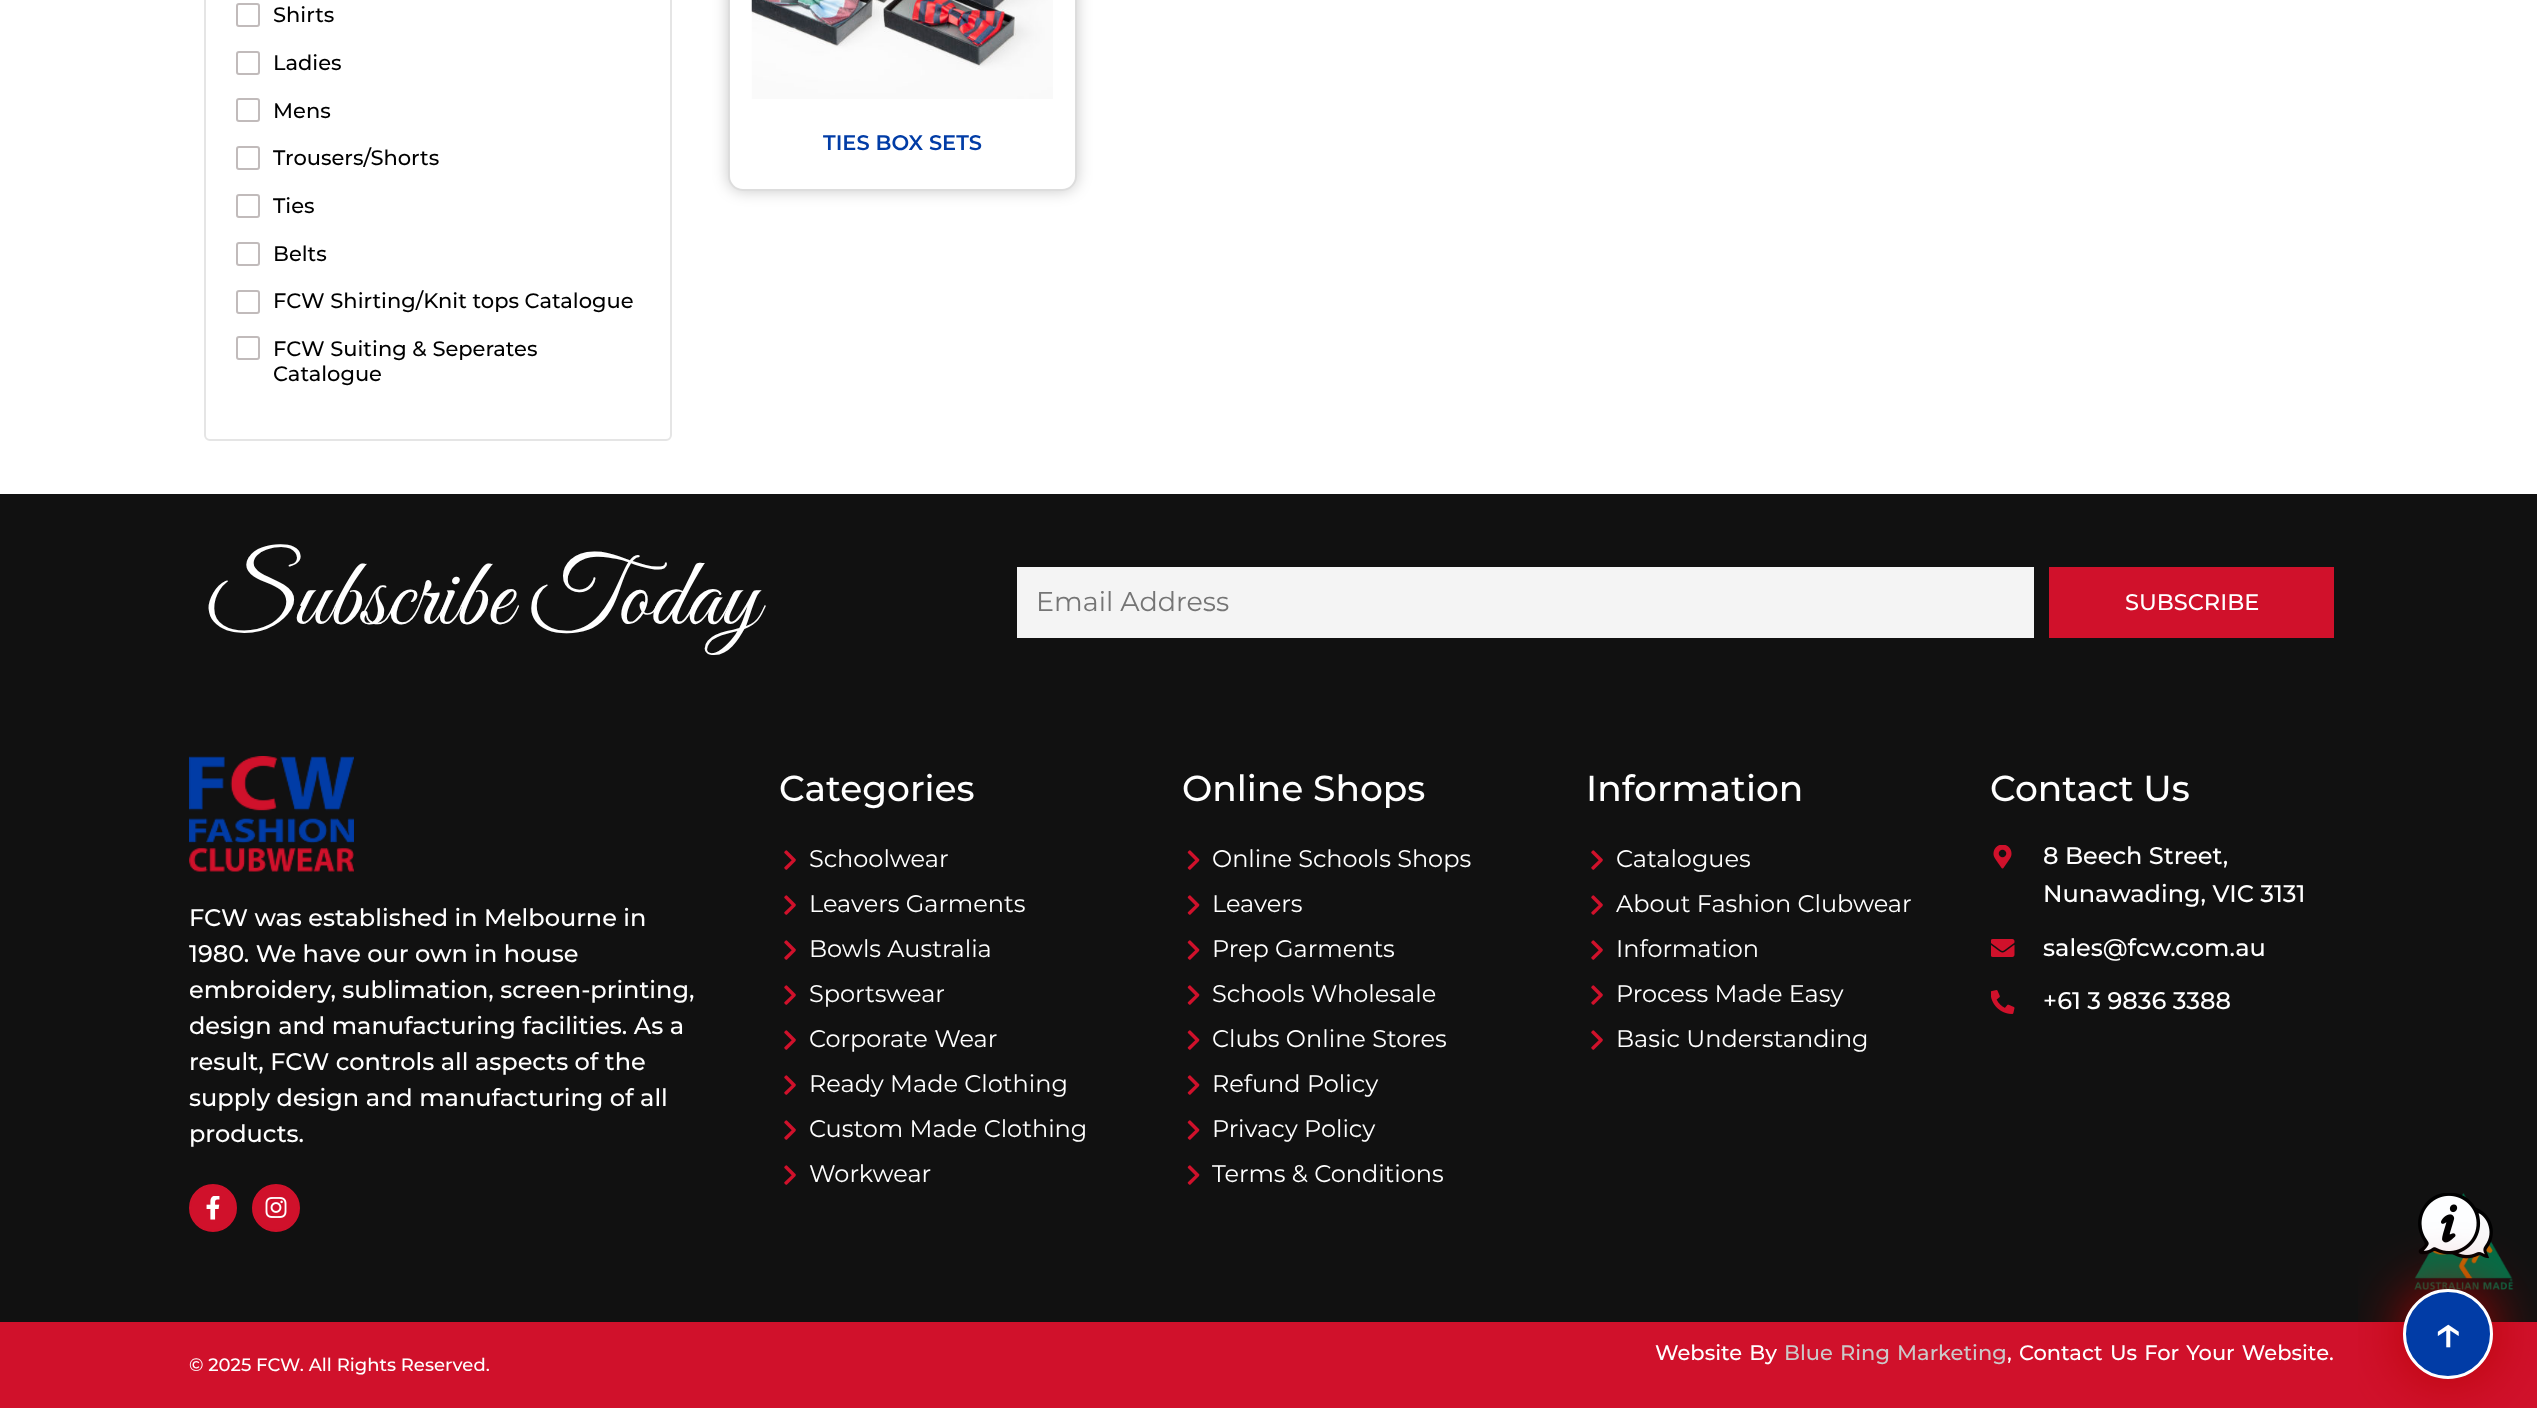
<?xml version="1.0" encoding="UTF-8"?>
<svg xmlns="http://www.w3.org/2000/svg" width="2537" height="1408">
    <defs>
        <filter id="blur1" x="-50%" y="-200%" width="200%" height="500%"><feGaussianBlur stdDeviation="7.5"/></filter>
        <filter id="blur2" x="-50%" y="-200%" width="200%" height="500%"><feGaussianBlur stdDeviation="30"/></filter>
    </defs>
    <rect width="100%" height="100%" fill="#FFFFFF"/>
    <rect x="205" y="-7" width="466" height="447" rx="5" fill="none" stroke="#E5E5E5" stroke-width="2"/>
    <rect x="237" y="4" width="22" height="22" rx="2" fill="none" stroke="#C1BBBB" stroke-width="2"/>
    <text x="273" y="22" font-family="Montserrat" font-size="21" font-weight="500" fill="#000000">Shirts</text>
    <rect x="237" y="52" width="22" height="22" rx="2" fill="none" stroke="#C1BBBB" stroke-width="2"/>
    <text x="273" y="70" font-family="Montserrat" font-size="21" font-weight="500" fill="#000000">Ladies</text>
    <rect x="237" y="99" width="22" height="22" rx="2" fill="none" stroke="#C1BBBB" stroke-width="2"/>
    <text x="273" y="118" font-family="Montserrat" font-size="21" font-weight="500" fill="#000000">Mens</text>
    <rect x="237" y="147" width="22" height="22" rx="2" fill="none" stroke="#C1BBBB" stroke-width="2"/>
    <text x="273" y="165" font-family="Montserrat" font-size="21" font-weight="500" fill="#000000">Trousers/Shorts</text>
    <rect x="237" y="195" width="22" height="22" rx="2" fill="none" stroke="#C1BBBB" stroke-width="2"/>
    <text x="273" y="213" font-family="Montserrat" font-size="21" font-weight="500" fill="#000000">Ties</text>
    <rect x="237" y="243" width="22" height="22" rx="2" fill="none" stroke="#C1BBBB" stroke-width="2"/>
    <text x="273" y="261" font-family="Montserrat" font-size="21" font-weight="500" fill="#000000">Belts</text>
    <rect x="237" y="291" width="22" height="22" rx="2" fill="none" stroke="#C1BBBB" stroke-width="2"/>
    <text x="273" y="308" font-family="Montserrat" font-size="21" font-weight="500" fill="#000000">FCW Shirting/Knit tops Catalogue</text>
    <rect x="237" y="337" width="22" height="22" rx="2" fill="none" stroke="#C1BBBB" stroke-width="2"/>
    <text font-family="Montserrat" font-size="21" font-weight="500" fill="#000000">
        <tspan x="273" y="356">FCW Suiting &amp; Seperates</tspan>
        <tspan x="273" y="381">Catalogue</tspan>
    </text>
    <rect x="728" y="-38" width="349" height="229" rx="15" fill="#000000" fill-opacity="0.21" filter="url(#blur1)"/>
    <rect x="729" y="-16" width="347" height="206" rx="14" fill="#FFFFFF" stroke="#DDDDDD" stroke-width="2"/>
    <image x="751" y="0" width="302" height="99" href="img_01.png"/>
    <text x="823" y="150" font-family="Montserrat" font-size="21" font-weight="600" fill="#013CA6">TIES BOX SETS</text>
    <rect x="0" y="494" width="2537" height="828" fill="#111111"/>
    <image x="2414" y="1193" width="100" height="97" href="img_11.png"/>
    <image x="2418" y="1193" width="75" height="66" href="img_02.png"/>
    <text x="204" y="624" font-family="Great Vibes" font-size="97.5" fill="#FFFFFF">Subscribe Today</text>
    <rect x="1017" y="567" width="1017" height="71" fill="#F4F4F4"/>
    <text x="1036" y="611" font-family="Montserrat" font-size="27" fill="#757575">Email Address</text>
    <rect x="2049" y="567" width="285" height="71" fill="#D0112B"/>
    <text x="2125" y="610" font-family="Montserrat" font-size="22.5" font-weight="500" fill="#FFFFFF">SUBSCRIBE</text>
    <image x="189" y="756" width="165" height="116" href="img_03.png"/>
    <text font-family="Montserrat" font-size="24" font-weight="500" fill="#FFFFFF">
        <tspan x="189" y="926">FCW was established in Melbourne in</tspan>
        <tspan x="189" y="962">1980. We have our own in house</tspan>
        <tspan x="189" y="998">embroidery, sublimation, screen-printing,</tspan>
        <tspan x="189" y="1034">design and manufacturing facilities. As a</tspan>
        <tspan x="189" y="1070">result, FCW controls all aspects of the</tspan>
        <tspan x="189" y="1106">supply design and manufacturing of all</tspan>
        <tspan x="189" y="1142">products.</tspan>
    </text>
    <circle cx="213" cy="1208" r="23" fill="#D0112B" stroke="#D0112B" stroke-width="2"/>
    <image x="206" y="1196" width="14" height="24" href="img_04.png"/>
    <circle cx="276" cy="1208" r="23" fill="#D0112B" stroke="#D0112B" stroke-width="2"/>
    <image x="265" y="1197" width="22" height="21" href="img_05.png"/>
    <text x="779" y="801" font-family="Montserrat" font-size="36" font-weight="500" fill="#FFFFFF">Categories</text>
    <image x="784" y="850" width="12" height="20" href="img_06.png"/>
    <text x="809" y="867" font-family="Montserrat" font-size="24" fill="#FFFFFF">Schoolwear</text>
    <image x="784" y="895" width="12" height="20" href="img_06.png"/>
    <text x="809" y="912" font-family="Montserrat" font-size="24" fill="#FFFFFF">Leavers Garments</text>
    <image x="784" y="940" width="12" height="20" href="img_06.png"/>
    <text x="809" y="957" font-family="Montserrat" font-size="24" fill="#FFFFFF">Bowls Australia</text>
    <image x="784" y="985" width="12" height="20" href="img_06.png"/>
    <text x="809" y="1002" font-family="Montserrat" font-size="24" fill="#FFFFFF">Sportswear</text>
    <image x="784" y="1030" width="12" height="20" href="img_06.png"/>
    <text x="809" y="1047" font-family="Montserrat" font-size="24" fill="#FFFFFF">Corporate Wear</text>
    <image x="784" y="1075" width="12" height="20" href="img_06.png"/>
    <text x="809" y="1092" font-family="Montserrat" font-size="24" fill="#FFFFFF">Ready Made Clothing</text>
    <image x="784" y="1120" width="12" height="20" href="img_06.png"/>
    <text x="809" y="1137" font-family="Montserrat" font-size="24" fill="#FFFFFF">Custom Made Clothing</text>
    <image x="784" y="1165" width="12" height="20" href="img_06.png"/>
    <text x="809" y="1182" font-family="Montserrat" font-size="24" fill="#FFFFFF">Workwear</text>
    <text x="1182" y="801" font-family="Montserrat" font-size="36" font-weight="500" fill="#FFFFFF">Online Shops</text>
    <image x="1187" y="850" width="13" height="20" href="img_07.png"/>
    <text x="1212" y="867" font-family="Montserrat" font-size="24" fill="#FFFFFF">Online Schools Shops</text>
    <image x="1187" y="895" width="13" height="20" href="img_07.png"/>
    <text x="1212" y="912" font-family="Montserrat" font-size="24" fill="#FFFFFF">Leavers</text>
    <image x="1187" y="940" width="13" height="20" href="img_07.png"/>
    <text x="1212" y="957" font-family="Montserrat" font-size="24" fill="#FFFFFF">Prep Garments</text>
    <image x="1187" y="985" width="13" height="20" href="img_07.png"/>
    <text x="1212" y="1002" font-family="Montserrat" font-size="24" fill="#FFFFFF">Schools Wholesale</text>
    <image x="1187" y="1030" width="13" height="20" href="img_07.png"/>
    <text x="1212" y="1047" font-family="Montserrat" font-size="24" fill="#FFFFFF">Clubs Online Stores</text>
    <image x="1187" y="1075" width="13" height="20" href="img_07.png"/>
    <text x="1212" y="1092" font-family="Montserrat" font-size="24" fill="#FFFFFF">Refund Policy</text>
    <image x="1187" y="1120" width="13" height="20" href="img_07.png"/>
    <text x="1212" y="1137" font-family="Montserrat" font-size="24" fill="#FFFFFF">Privacy Policy</text>
    <image x="1187" y="1165" width="13" height="20" href="img_07.png"/>
    <text x="1212" y="1182" font-family="Montserrat" font-size="24" fill="#FFFFFF">Terms &amp; Conditions</text>
    <text x="1586" y="801" font-family="Montserrat" font-size="36" font-weight="500" fill="#FFFFFF">Information</text>
    <image x="1591" y="850" width="12" height="20" href="img_06.png"/>
    <text x="1616" y="867" font-family="Montserrat" font-size="24" fill="#FFFFFF">Catalogues</text>
    <image x="1591" y="895" width="12" height="20" href="img_06.png"/>
    <text x="1616" y="912" font-family="Montserrat" font-size="24" fill="#FFFFFF">About Fashion Clubwear</text>
    <image x="1591" y="940" width="12" height="20" href="img_06.png"/>
    <text x="1616" y="957" font-family="Montserrat" font-size="24" fill="#FFFFFF">Information</text>
    <image x="1591" y="985" width="12" height="20" href="img_06.png"/>
    <text x="1616" y="1002" font-family="Montserrat" font-size="24" fill="#FFFFFF">Process Made Easy</text>
    <image x="1591" y="1030" width="12" height="20" href="img_06.png"/>
    <text x="1616" y="1047" font-family="Montserrat" font-size="24" fill="#FFFFFF">Basic Understanding</text>
    <text x="1990" y="801" font-family="Montserrat" font-size="36" font-weight="500" fill="#FFFFFF">Contact Us</text>
    <image x="1993" y="845" width="19" height="24" href="img_08.png"/>
    <text font-family="Montserrat" font-size="24" font-weight="500" fill="#FFFFFF">
        <tspan x="2043" y="864">8 Beech Street,</tspan>
        <tspan x="2043" y="902">Nunawading, VIC 3131</tspan>
    </text>
    <image x="1991" y="939" width="24" height="18" href="img_09.png"/>
    <text x="2043" y="956" font-family="Montserrat" font-size="24" font-weight="500" fill="#FFFFFF">sales@fcw.com.au</text>
    <image x="1991" y="990" width="24" height="24" href="img_10.png"/>
    <text x="2043" y="1009" font-family="Montserrat" font-size="24" font-weight="500" fill="#FFFFFF">+61 3 9836 3388</text>
    <rect x="0" y="1322" width="2537" height="86" fill="#D0112B"/>
    <text x="189" y="1371" font-family="Montserrat" font-size="18" font-weight="500" fill="#FFFFFF">© 2025 FCW. All Rights Reserved.</text>
    <text x="1655" y="1360" word-spacing="1.5" font-family="Montserrat" font-size="21" font-weight="500" fill="#FFFFFF">Website By</text>
    <text x="1784" y="1360" word-spacing="1.5" font-family="Montserrat" font-size="21" font-weight="500" fill="#CCC8C8">Blue Ring Marketing</text>
    <text x="2007" y="1360" word-spacing="1.5" font-family="Montserrat" font-size="21" font-weight="500" fill="#FFFFFF">, Contact Us For Your Website.</text>
    <rect x="2403" y="1289" width="90" height="90" rx="45" fill="#B50F0F" filter="url(#blur2)"/>
    <circle cx="2448" cy="1334" r="43.5" fill="#013CA6" stroke="#FFFFFF" stroke-width="3"/>
    <text x="2433" y="1350" font-family="Montserrat" font-size="51" font-weight="500" fill="#FFFFFF">↑</text>
</svg>
